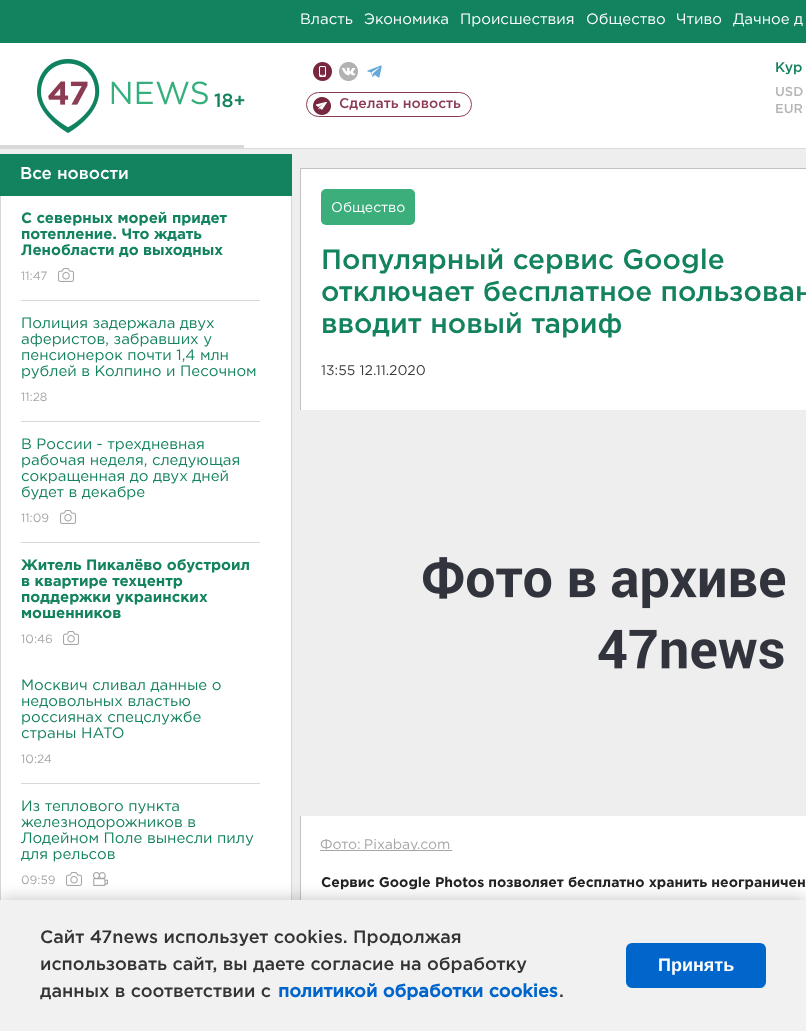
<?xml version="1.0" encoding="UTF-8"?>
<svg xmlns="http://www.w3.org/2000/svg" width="806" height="1031">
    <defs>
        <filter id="blur1" x="-50%" y="-200%" width="200%" height="500%"><feGaussianBlur stdDeviation="7.5"/></filter>
    </defs>
    <rect width="100%" height="100%" fill="#EEEEEE"/>
    <rect x="0" y="0" width="806" height="43" fill="#13825F"/>
    <text x="300" y="24" font-family="Gotham" font-size="15" fill="#FFFFFF">Власть</text>
    <text x="364" y="24" font-family="Gotham" font-size="15" fill="#FFFFFF">Экономика</text>
    <text x="460" y="24" font-family="Gotham" font-size="15" fill="#FFFFFF">Происшествия</text>
    <text x="586" y="24" font-family="Gotham" font-size="15" fill="#FFFFFF">Общество</text>
    <text x="676" y="24" font-family="Gotham" font-size="15" fill="#FFFFFF">Чтиво</text>
    <text x="733" y="24" font-family="Gotham" font-size="15" fill="#FFFFFF">Дачное д</text>
    <rect x="0" y="43" width="806" height="105" fill="#FFFFFF"/>
    <rect x="0" y="148" width="806" height="1" fill="#DAD9D9"/>
    <rect x="0" y="145" width="244" height="3" fill="#DAD9D9"/>
    <image x="37" y="59" width="171" height="74" href="img_01.png"/>
    <text x="775" y="72" font-family="Gotham" font-size="14" font-weight="500" fill="#13825F">Кур</text>
    <text font-family="Gotham" font-size="13" font-weight="500" fill="#B5B5B5">
        <tspan x="775" y="96">USD</tspan>
        <tspan x="775" y="113">EUR</tspan>
    </text>
    <text x="214" y="107" font-family="Gotham" font-size="19" font-weight="500" fill="#13825F">18+</text>
    <image x="313" y="62" width="19" height="19" href="img_02.png"/>
    <image x="339" y="62" width="19" height="19" href="img_03.png"/>
    <image x="367" y="65" width="15" height="13" href="img_04.png"/>
    <image x="313" y="97" width="18" height="18" href="img_05.png"/>
    <rect x="306.5" y="92.5" width="165" height="24" rx="12" fill="none" stroke="#8C3B52"/>
    <text x="339" y="108" font-family="Gotham" font-size="14" font-weight="500" fill="#8C3B52">Сделать новость</text>
    <rect x="0" y="154" width="292" height="42" fill="#13825F"/>
    <text x="20" y="179" font-family="Gotham" font-size="17" font-weight="500" fill="#FFFFFF">Все новости</text>
    <rect x="1" y="196" width="290" height="704" fill="#FFFFFF"/>
    <rect x="291" y="196" width="1" height="704" fill="#D6D6D6"/>
    <rect x="0" y="196" width="1" height="704" fill="#D6D6D6"/>
    <rect x="21" y="300" width="239" height="1" fill="#D8D8D8"/>
    <text font-family="Gotham" font-size="15" font-weight="700" fill="#13825F">
        <tspan x="21" y="223">С северных морей придет</tspan>
        <tspan x="21" y="239">потепление. Что ждать</tspan>
        <tspan x="21" y="255">Ленобласти до выходных</tspan>
    </text>
    <text x="21" y="280" font-family="Gotham" font-size="12" fill="#A7A7A7">11:47</text>
    <image x="58" y="268" width="16" height="14" href="img_06.png"/>
    <rect x="21" y="421" width="239" height="1" fill="#D8D8D8"/>
    <text font-family="Gotham" font-size="15" fill="#13825F">
        <tspan x="21" y="328">Полиция задержала двух</tspan>
        <tspan x="21" y="344">аферистов, забравших у</tspan>
        <tspan x="21" y="360">пенсионерок почти 1,4 млн</tspan>
        <tspan x="21" y="376">рублей в Колпино и Песочном</tspan>
    </text>
    <text x="21" y="401" font-family="Gotham" font-size="12" fill="#A7A7A7">11:28</text>
    <rect x="21" y="542" width="239" height="1" fill="#D8D8D8"/>
    <text font-family="Gotham" font-size="15" fill="#13825F">
        <tspan x="21" y="449">В России - трехдневная</tspan>
        <tspan x="21" y="465">рабочая неделя, следующая</tspan>
        <tspan x="21" y="481">сокращенная до двух дней</tspan>
        <tspan x="21" y="497">будет в декабре</tspan>
    </text>
    <text x="21" y="522" font-family="Gotham" font-size="12" fill="#A7A7A7">11:09</text>
    <image x="60" y="510" width="16" height="14" href="img_06.png"/>
    <text font-family="Gotham" font-size="15" font-weight="700" fill="#13825F">
        <tspan x="21" y="570">Житель Пикалёво обустроил</tspan>
        <tspan x="21" y="586">в квартире техцентр</tspan>
        <tspan x="21" y="602">поддержки украинских</tspan>
        <tspan x="21" y="618">мошенников</tspan>
    </text>
    <text x="21" y="643" font-family="Gotham" font-size="12" fill="#A7A7A7">10:46</text>
    <image x="63" y="631" width="16" height="14" href="img_06.png"/>
    <rect x="21" y="783" width="239" height="1" fill="#D8D8D8"/>
    <text font-family="Gotham" font-size="15" fill="#13825F">
        <tspan x="21" y="690">Москвич сливал данные о</tspan>
        <tspan x="21" y="706">недовольных властью</tspan>
        <tspan x="21" y="722">россиянах спецслужбе</tspan>
        <tspan x="21" y="738">страны НАТО</tspan>
    </text>
    <text x="21" y="763" font-family="Gotham" font-size="12" fill="#A7A7A7">10:24</text>
    <text font-family="Gotham" font-size="15" fill="#13825F">
        <tspan x="21" y="811">Из теплового пункта</tspan>
        <tspan x="21" y="827">железнодорожников в</tspan>
        <tspan x="21" y="843">Лодейном Поле вынесли пилу</tspan>
        <tspan x="21" y="859">для рельсов</tspan>
    </text>
    <text x="21" y="884" font-family="Gotham" font-size="12" fill="#A7A7A7">09:59</text>
    <image x="66" y="872" width="16" height="14" href="img_06.png"/>
    <image x="93" y="872" width="15" height="14" href="img_07.png"/>
    <rect x="301" y="169" width="505" height="731" fill="#FFFFFF"/>
    <rect x="300.5" y="168.5" width="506" height="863" fill="none" stroke="#C2C2C2"/>
    <rect x="321" y="189" width="94" height="36" rx="5" fill="#3BAE7C"/>
    <text x="331" y="212" font-family="Gotham" font-size="14" fill="#FFFFFF">Общество</text>
    <text font-family="Gotham" font-size="28" font-weight="500" fill="#13825F">
        <tspan x="321" y="269">Популярный сервис Google</tspan>
        <tspan x="321" y="301">отключает бесплатное пользован</tspan>
        <tspan x="321" y="333">вводит новый тариф</tspan>
    </text>
    <text x="321" y="375" font-family="Gotham" font-size="14" fill="#3C3C3C">13:55 12.11.2020</text>
    <image x="300" y="410" width="506" height="406" href="img_08.png"/>
    <rect x="320" y="850" width="132" height="1" fill="#A7A7A7"/>
    <text x="320" y="849" word-spacing="-1" font-family="Gotham" font-size="14" fill="#A7A7A7">Фото: Pixabay.com</text>
    <text x="321" y="887" font-family="Gotham" font-size="14" font-weight="700" fill="#222222">Сервис Google Photos позволяет бесплатно хранить неограничен</text>
    <rect x="0" y="898" width="806" height="131" fill="#000000" fill-opacity="0.2" filter="url(#blur1)"/>
    <rect x="0" y="900" width="806" height="131" fill="#F1F1F1"/>
    <text font-family="Gotham" font-size="18" font-weight="500" fill="#333333">
        <tspan x="40" y="943">Сайт 47news использует cookies. Продолжая</tspan>
        <tspan x="40" y="970">использовать сайт, вы даете согласие на обработку</tspan>
        <tspan x="40" y="997">данных в соответствии с</tspan>
    </text>
    <text x="278" y="997" font-family="'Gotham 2'" font-size="18" font-weight="700" fill="#0066CC">политикой обработки cookies</text>
    <text x="559" y="997" font-family="Gotham" font-size="18" font-weight="500" fill="#333333">.</text>
    <rect x="626" y="943" width="140" height="45" rx="6" fill="#0066CC"/>
    <text x="658" y="971" font-family="Liberation Sans" font-size="18" font-weight="700" fill="#FFFFFF">Принять</text>
</svg>
